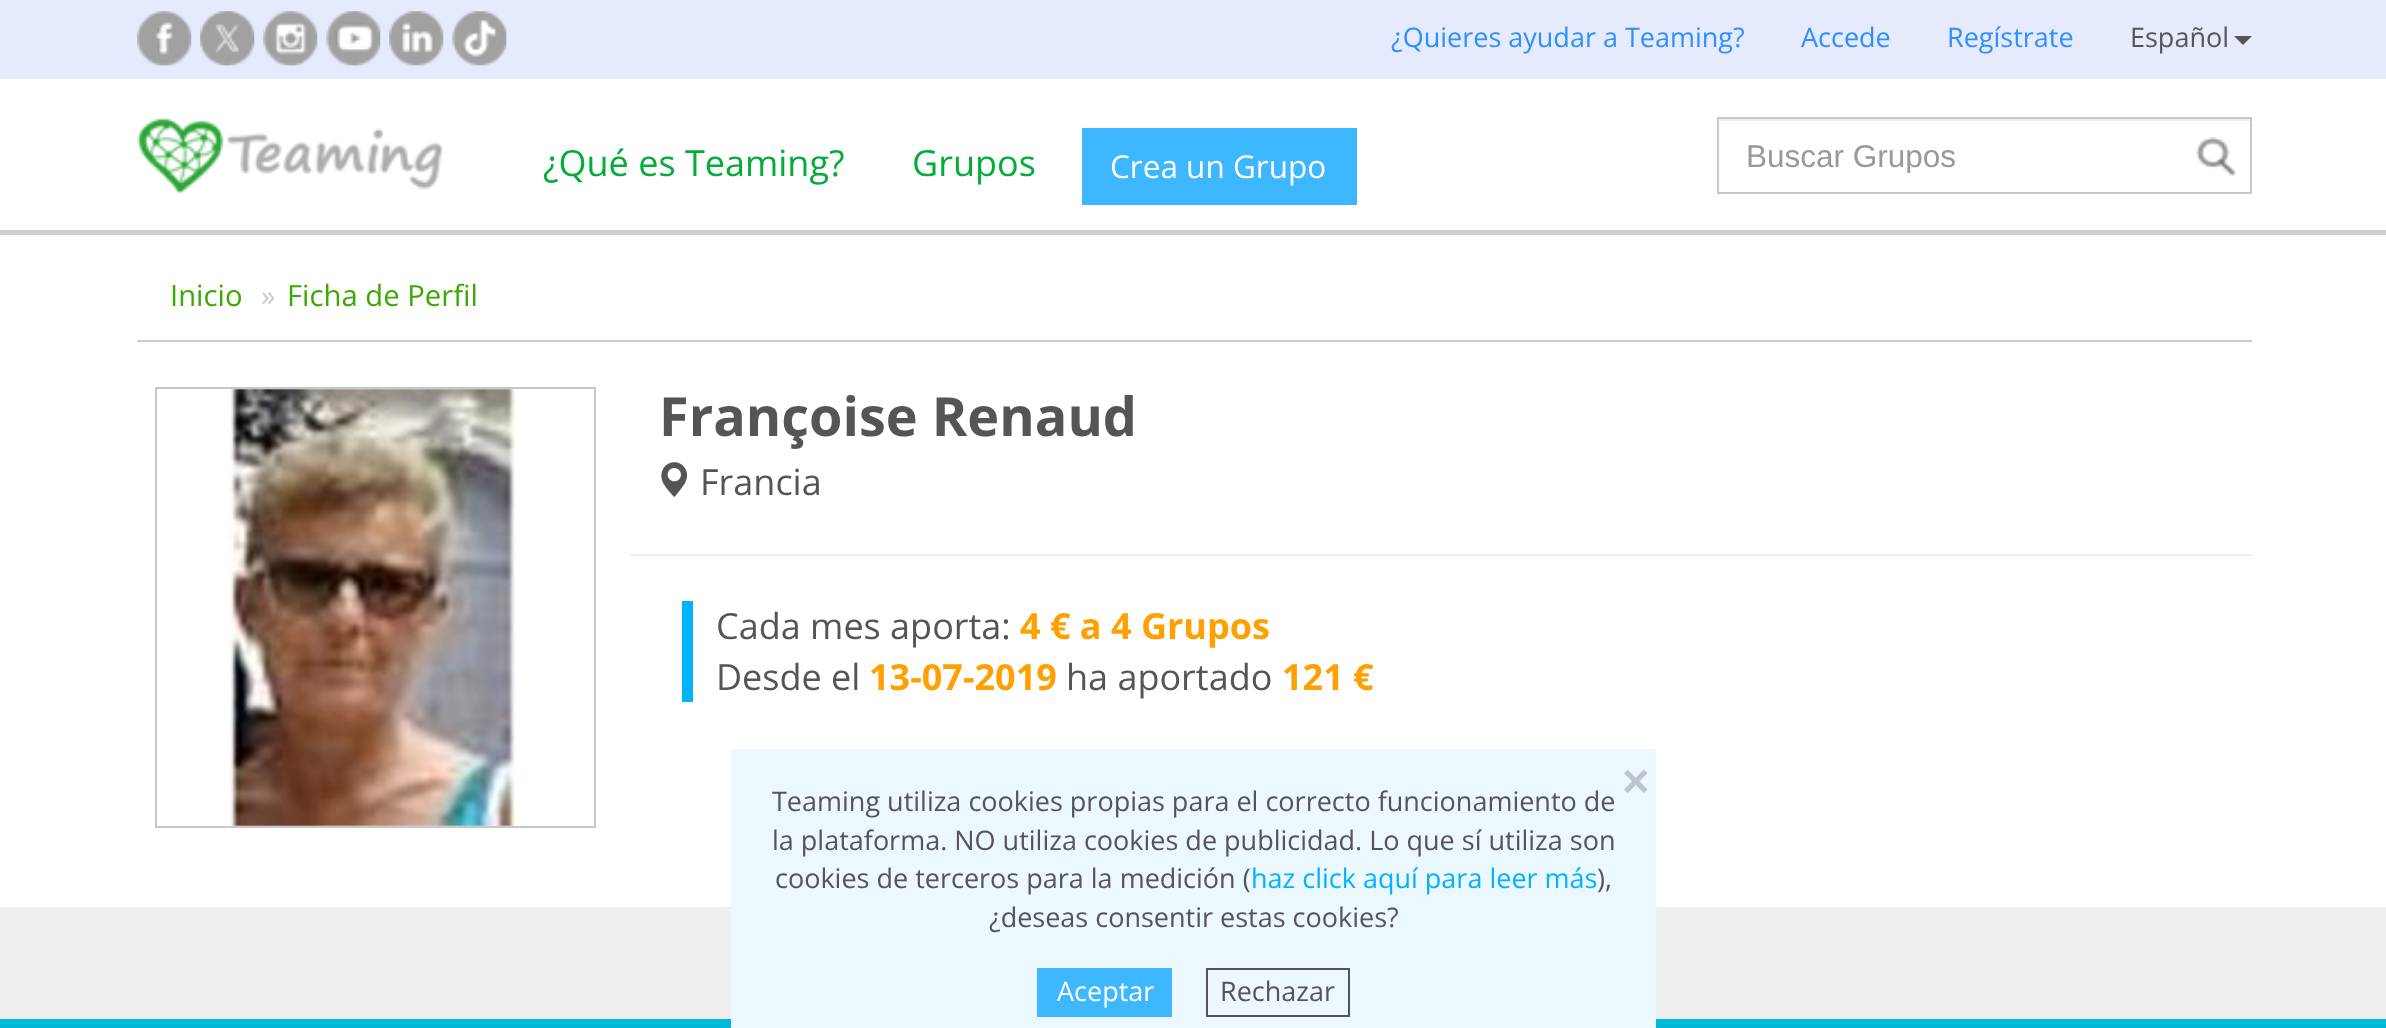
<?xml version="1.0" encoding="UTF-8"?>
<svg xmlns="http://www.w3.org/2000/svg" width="2386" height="1028">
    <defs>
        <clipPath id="clip1"><rect x="1746" y="137" width="407" height="36"/></clipPath>
    </defs>
    <rect width="100%" height="100%" fill="#FFFFFF"/>
    <rect x="0" y="0" width="2386" height="79" fill="#E5EBFC"/>
    <image x="137" y="11" width="55" height="55" href="img_01.png"/>
    <image x="200" y="11" width="55" height="55" href="img_02.png"/>
    <image x="263" y="11" width="55" height="55" href="img_03.png"/>
    <image x="326" y="11" width="55" height="55" href="img_04.png"/>
    <image x="389" y="11" width="55" height="55" href="img_05.png"/>
    <image x="452" y="11" width="55" height="55" href="img_06.png"/>
    <text x="1391" y="47" font-family="Open Sans" font-size="27" fill="#2F8FFF">¿Quieres ayudar a Teaming?</text>
    <text x="1801" y="47" font-family="Open Sans" font-size="27" fill="#2F8FFF">Accede</text>
    <text x="1947" y="47" font-family="Open Sans" font-size="27" fill="#2F8FFF">Regístrate</text>
    <text x="2130" y="47" font-family="Open Sans" font-size="27" fill="#555555">Español</text>
    <path d="M 2234 36 H 2252 L 2243 45 Z" fill="#555555"/>
    <rect x="0" y="230" width="2386" height="5" fill="#CECECE"/>
    <image x="137" y="118" width="307" height="76" href="img_07.png"/>
    <text x="543" y="176" font-family="Open Sans" font-size="36" fill="#02AD38">¿Qué es Teaming?</text>
    <text x="912" y="176" font-family="Open Sans" font-size="36" fill="#02AD38">Grupos</text>
    <rect x="1082" y="128" width="275" height="77" fill="#3DB7FF"/>
    <text x="1110" y="178" font-family="Open Sans" font-size="31.5" fill="#FFFFFF">Crea un Grupo</text>
    <rect x="1719" y="119" width="531" height="2" fill="#ECECEC"/>
    <rect x="1718" y="118" width="533" height="75" fill="none" stroke="#C7C7C7" stroke-width="2"/>
    <g clip-path="url(#clip1)">
        <text x="1746" y="167" font-family="Liberation Sans" font-size="31.5" fill="#999999">Buscar Grupos</text>
    </g>
    <image x="2196" y="137" width="41" height="39" href="img_08.png"/>
    <rect x="137" y="340" width="2115" height="2" fill="#CCCCCC"/>
    <text x="170" y="306" font-family="Open Sans" font-size="29.25" fill="#3CA803">Inicio</text>
    <text x="261" y="306" font-family="Open Sans" font-size="29.25" fill="#CCCCCC">»</text>
    <text x="287" y="306" font-family="Open Sans" font-size="29.25" fill="#3CA803">Ficha de Perfil</text>
    <rect x="156" y="388" width="439" height="439" fill="none" stroke="#C7C7C7" stroke-width="2"/>
    <image x="228" y="389" width="288" height="437" href="img_09.png"/>
    <text x="659" y="436" font-family="Open Sans" font-size="54" font-weight="700" fill="#555555">Françoise Renaud</text>
    <image x="661" y="462" width="27" height="35" href="img_10.png"/>
    <text x="700" y="495" font-family="Open Sans" font-size="36" fill="#555555">Francia</text>
    <rect x="630" y="554" width="1622" height="2" fill="#EEEEEE"/>
    <rect x="682" y="601" width="11" height="101" fill="#00B2FF"/>
    <text x="716" y="639" font-family="Open Sans" font-size="36" fill="#555555">Cada mes aporta:</text>
    <text x="1020" y="639" font-family="Open Sans" font-size="36" font-weight="700" fill="#FEA100">4 € a 4 Grupos</text>
    <text x="716" y="690" font-family="Open Sans" font-size="36" fill="#555555">Desde el</text>
    <text x="869" y="690" font-family="Open Sans" font-size="36" font-weight="700" fill="#FEA100">13-07-2019</text>
    <text x="1066" y="690" font-family="Open Sans" font-size="36" fill="#555555">ha aportado</text>
    <text x="1282" y="690" font-family="Open Sans" font-size="36" font-weight="700" fill="#FEA100">121 €</text>
    <rect x="0" y="907" width="2386" height="112" fill="#EEEEEE"/>
    <rect x="0" y="1019" width="2386" height="9" fill="#00B8D8"/>
    <rect x="731" y="749" width="925" height="279" fill="#ECF8FF"/>
    <text x="1622" y="797" font-family="Liberation Sans" font-size="47" font-weight="700" fill="#BDC6CC">×</text>
    <text font-family="Open Sans" font-size="27" fill="#555555">
        <tspan x="772" y="811">Teaming utiliza cookies propias para el correcto funcionamiento de</tspan>
        <tspan x="772" y="850">la plataforma. NO utiliza cookies de publicidad. Lo que sí utiliza son</tspan>
    </text>
    <text x="775" y="888" font-family="Open Sans" font-size="27" fill="#555555">cookies de terceros para la medición (</text>
    <text x="1251" y="888" font-family="Open Sans" font-size="27" fill="#00B2FF">haz click aquí para leer más</text>
    <text x="1597" y="888" font-family="Open Sans" font-size="27" fill="#555555">),</text>
    <text x="989" y="927" font-family="Open Sans" font-size="27" fill="#555555">¿deseas consentir estas cookies?</text>
    <rect x="1037" y="968" width="135" height="49" fill="#3DB7FF"/>
    <text x="1057" y="1001" font-family="Open Sans" font-size="27" fill="#FFFFFF">Aceptar</text>
    <rect x="1207" y="969" width="142" height="47" fill="none" stroke="#555555" stroke-width="2"/>
    <text x="1220" y="1001" font-family="Open Sans" font-size="27" fill="#555555">Rechazar</text>
</svg>
